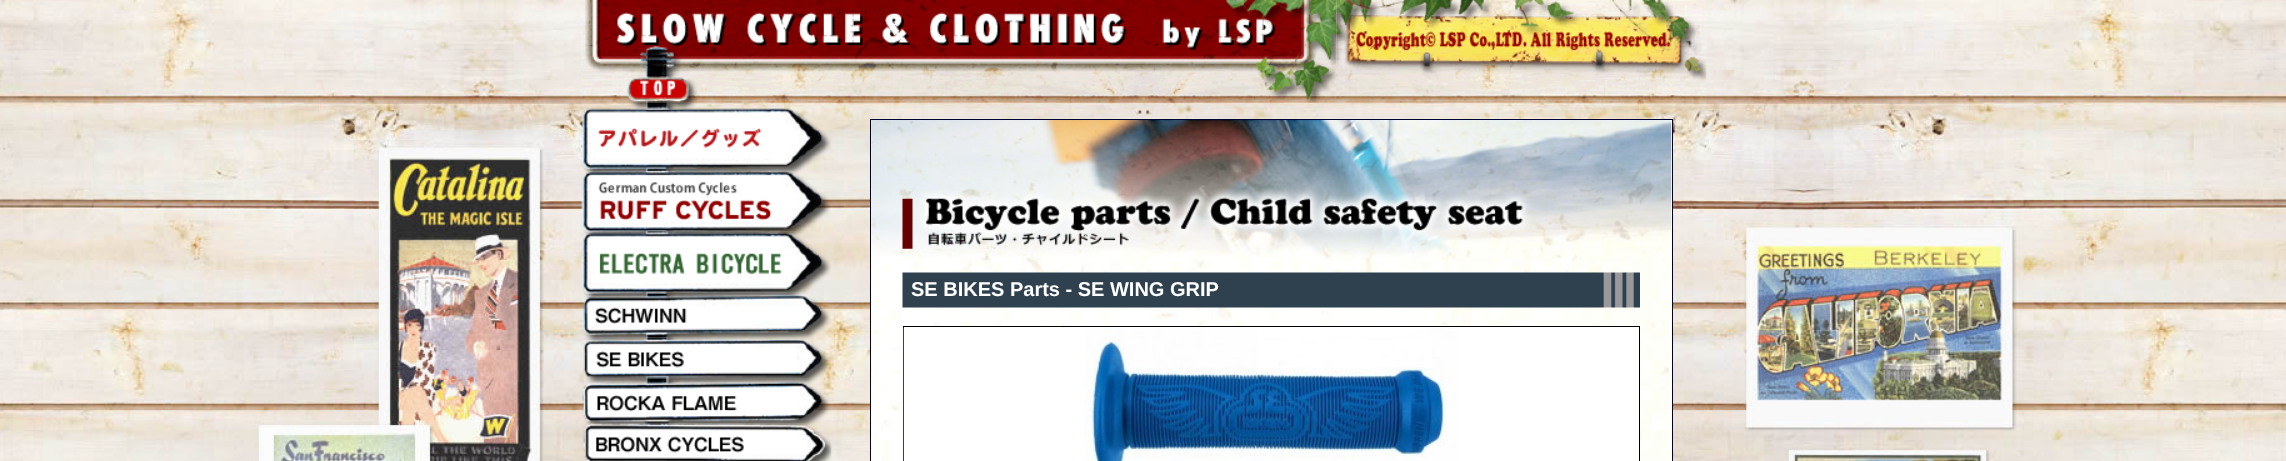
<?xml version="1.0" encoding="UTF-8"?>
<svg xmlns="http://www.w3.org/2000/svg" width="2286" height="461">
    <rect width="100%" height="100%" fill="#FFFFFF"/>
    <image x="0" y="0" width="2286" height="461" href="img_01.png"/>
    <image x="93" y="0" width="2101" height="461" href="img_02.png"/>
    <image x="581" y="0" width="756" height="103" href="img_03.png"/>
    <image x="1336" y="0" width="371" height="103" href="img_04.png"/>
    <image x="581" y="102" width="250" height="70" href="img_05.png"/>
    <image x="581" y="171" width="250" height="61" href="img_06.png"/>
    <image x="581" y="231" width="250" height="62" href="img_07.png"/>
    <image x="582" y="292" width="249" height="46" href="img_08.png"/>
    <image x="583" y="337" width="248" height="42" href="img_09.png"/>
    <image x="582" y="378" width="249" height="46" href="img_10.png"/>
    <image x="582" y="423" width="250" height="38" href="img_11.png"/>
    <image x="870" y="118" width="803" height="343" href="img_12.png"/>
    <rect x="870.5" y="119.5" width="802" height="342" fill="none" stroke="#000033"/>
    <image x="871" y="120" width="801" height="138" href="img_13.png"/>
    <image x="902" y="272" width="738" height="36" href="img_14.png"/>
    <text x="911" y="296" font-family="Liberation Sans" font-size="20" font-weight="700" fill="#FFFFFF">SE BIKES Parts - SE WING GRIP</text>
    <rect x="903.5" y="326.5" width="736" height="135" fill="none" stroke="#000000"/>
    <image x="903" y="327" width="736" height="134" href="img_15.png"/>
</svg>
